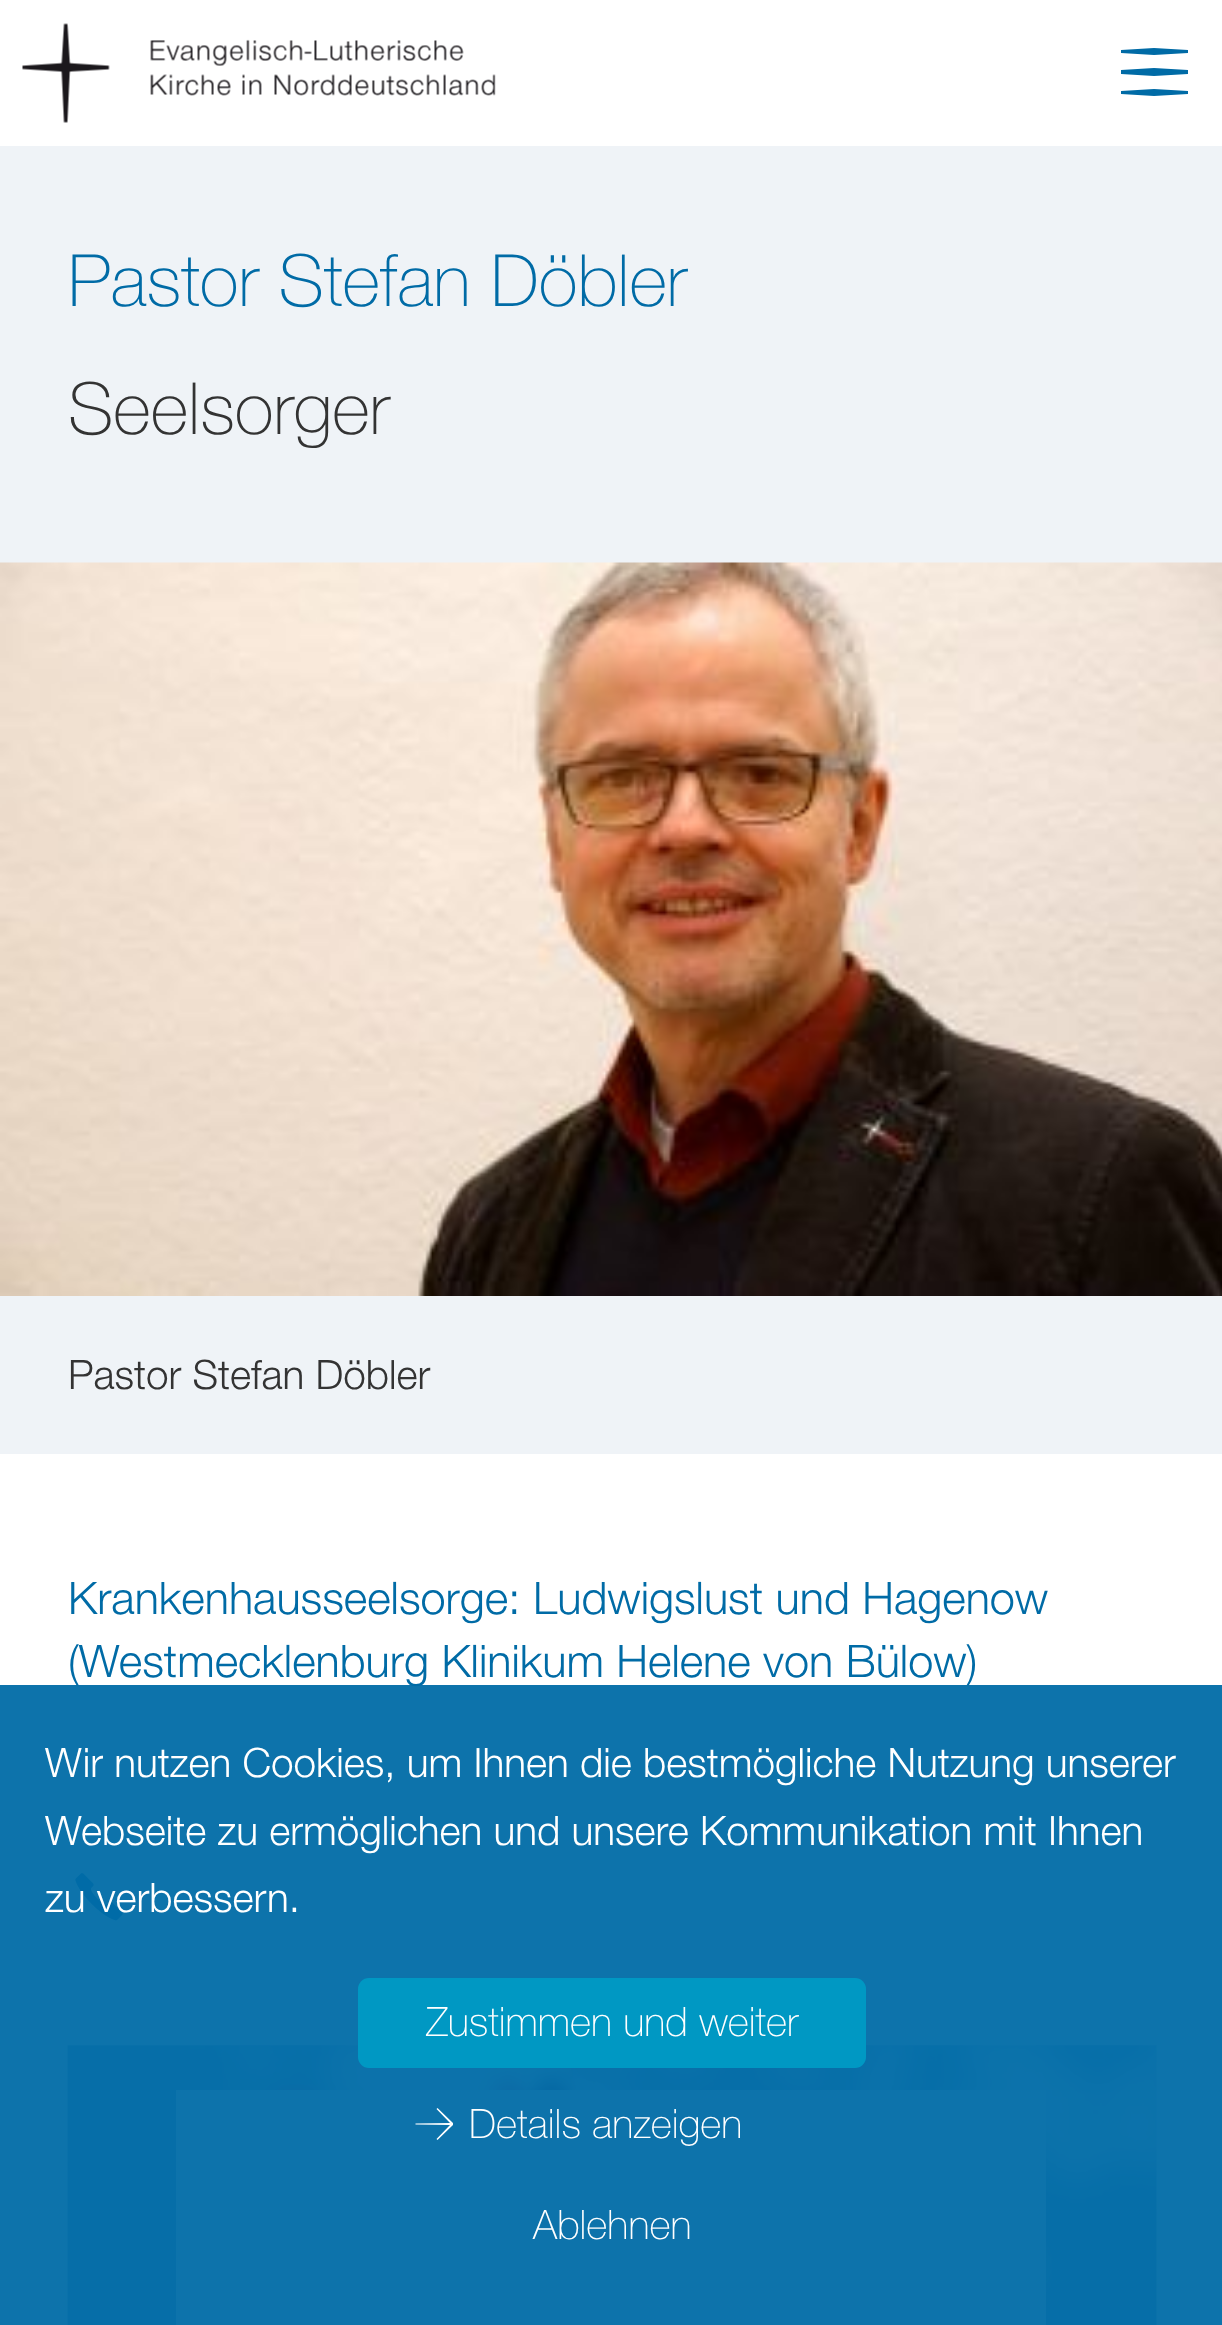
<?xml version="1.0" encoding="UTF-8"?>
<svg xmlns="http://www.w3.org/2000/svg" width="1222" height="2325">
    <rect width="100%" height="100%" fill="#FFFFFF"/>
    <image x="22" y="23" width="474" height="100" href="img_01.png"/>
    <path d="M 1188 50 L 1154 48 L 1121 50 V 53 L 1154 55 L 1188 53 Z" fill="#006BA6"/>
    <path d="M 1188 70 L 1154 68 L 1121 70 V 74 L 1154 76 L 1188 74 Z" fill="#006BA6"/>
    <path d="M 1188 91 L 1154 89 L 1121 91 V 94 L 1154 96 L 1188 94 Z" fill="#006BA6"/>
    <rect x="0" y="146" width="1222" height="1308" fill="#EFF3F7"/>
    <text x="68" y="306" font-family="Helvetica Neue" font-size="72" font-weight="100" fill="#006BA6">Pastor Stefan Döbler</text>
    <text x="68" y="434" font-family="Helvetica Neue" font-size="72" font-weight="100" fill="#333333">Seelsorger</text>
    <image x="0" y="562" width="1222" height="734" href="img_02.png"/>
    <text x="68" y="1389" font-family="Helvetica Neue" font-size="40.5" font-weight="300" fill="#333333">Pastor Stefan Döbler</text>
    <text font-family="Helvetica Neue" font-size="45" font-weight="300" fill="#006BA6">
        <tspan x="68" y="1614">Krankenhausseelsorge: Ludwigslust und Hagenow</tspan>
        <tspan x="68" y="1677">(Westmecklenburg Klinikum Helene von Bülow)</tspan>
    </text>
    <image x="75" y="1873" width="48" height="48" href="img_03.png"/>
    <rect x="68" y="2045" width="1089" height="280" fill="#F4F4F4"/>
    <image x="67" y="2045" width="1090" height="280" href="img_04.png"/>
    <rect x="176" y="2090" width="870" height="235" fill="#FFFFFF"/>
    <rect x="0" y="1685" width="1222" height="640" fill="#006BA6" fill-opacity="0.95"/>
    <text font-family="Helvetica Neue" font-size="40.5" font-weight="300" fill="#FFFFFF">
        <tspan x="45" y="1777">Wir nutzen Cookies, um Ihnen die bestmögliche Nutzung unserer</tspan>
        <tspan x="45" y="1845">Webseite zu ermöglichen und unsere Kommunikation mit Ihnen</tspan>
        <tspan x="45" y="1912">zu verbessern.</tspan>
    </text>
    <rect x="358" y="1978" width="508" height="90" rx="11" fill="#0098C3"/>
    <text x="426" y="2036" font-family="Helvetica Neue" font-size="40.5" font-weight="100" fill="#FFFFFF">Zustimmen und weiter</text>
    <path d="M 437.5 2108 L 436.5 2109 L 450 2123 L 415.5 2123.5 V 2124.5 L 450 2125 L 436.5 2139 L 437.5 2140 L 453 2125 V 2123 Z" fill="#FFFFFF"/>
    <text x="469" y="2138" font-family="Helvetica Neue" font-size="40.5" font-weight="100" fill="#FFFFFF">Details anzeigen</text>
    <text x="533" y="2239" font-family="Helvetica Neue" font-size="40.5" font-weight="100" fill="#FFFFFF">Ablehnen</text>
</svg>
